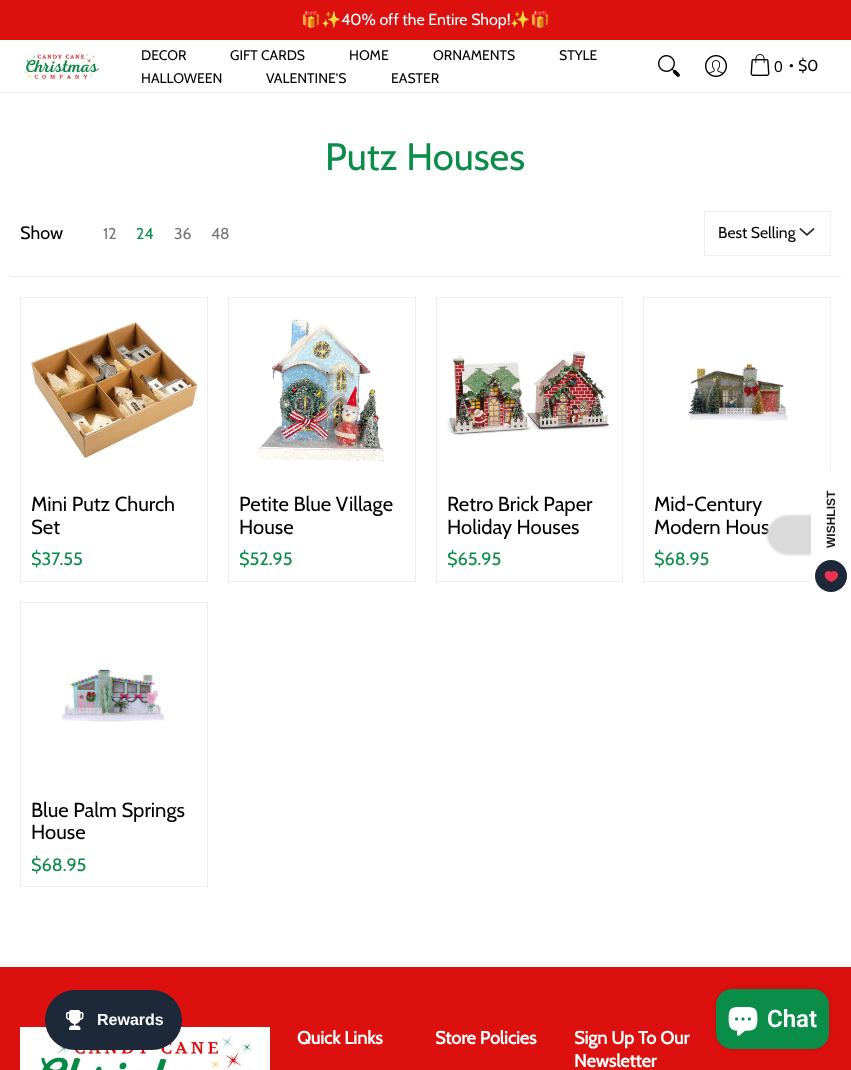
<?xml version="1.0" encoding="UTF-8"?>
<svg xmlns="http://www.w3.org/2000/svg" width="851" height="1070">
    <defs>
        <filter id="blur1" x="-50%" y="-200%" width="200%" height="500%"><feGaussianBlur stdDeviation="1"/></filter>
        <filter id="blur2" x="-50%" y="-200%" width="200%" height="500%"><feGaussianBlur stdDeviation="2.5"/></filter>
    </defs>
    <rect width="100%" height="100%" fill="#FFFFFF"/>
    <rect x="0" y="0" width="851" height="40" fill="#DC100E"/>
    <text x="301" y="25" font-family="Noto Color Emoji" font-size="16" fill="#FFFFFF">🎁✨</text>
    <text x="341" y="25" font-family="Cabin" font-size="16" fill="#FFFFFF">40% off the Entire Shop!</text>
    <text x="510" y="25" font-family="Noto Color Emoji" font-size="16" fill="#FFFFFF">✨🎁</text>
    <rect x="0" y="92" width="851" height="1" fill="#EDEEF4"/>
    <image x="24" y="50" width="76" height="31" href="img_01.png"/>
    <text x="141" y="60" font-family="Cabin" font-size="14" fill="#000000">DECOR</text>
    <text x="230" y="60" font-family="Cabin" font-size="14" fill="#000000">GIFT CARDS</text>
    <text x="349" y="60" font-family="Cabin" font-size="14" fill="#000000">HOME</text>
    <text x="433" y="60" font-family="Cabin" font-size="14" fill="#000000">ORNAMENTS</text>
    <text x="559" y="60" font-family="Cabin" font-size="14" fill="#000000">STYLE</text>
    <text x="141" y="83" font-family="Cabin" font-size="14" fill="#000000">HALLOWEEN</text>
    <text x="266" y="83" font-family="Cabin" font-size="14" fill="#000000">VALENTINE'S</text>
    <text x="391" y="83" font-family="Cabin" font-size="14" fill="#000000">EASTER</text>
    <image x="658" y="55" width="22" height="22" href="img_02.png"/>
    <image x="705" y="55" width="22" height="22" href="img_03.png"/>
    <image x="750" y="54" width="20" height="22" href="img_04.png"/>
    <text x="774" y="72" font-family="Liberation Sans" font-size="15.75" fill="#000000">0</text>
    <text x="789" y="70" font-family="Cabin" font-size="15.75" fill="#000000">•</text>
    <text x="798" y="71" font-family="Cabin" font-size="15.75" fill="#000000">$0</text>
    <text x="325" y="170" font-family="Cabin" font-size="38.25" fill="#0A8D49">Putz Houses</text>
    <rect x="10" y="276" width="831" height="1" fill="#EDEEF4"/>
    <text x="20" y="239" font-family="Cabin" font-size="18" fill="#000000">Show</text>
    <text x="103" y="239" font-family="Cabin" font-size="15.75" fill="#767676">12</text>
    <text x="136" y="239" font-family="Cabin" font-size="15.75" fill="#0A8D49">24</text>
    <text x="174" y="239" font-family="Cabin" font-size="15.75" fill="#767676">36</text>
    <text x="211" y="239" font-family="Cabin" font-size="15.75" fill="#767676">48</text>
    <image x="799" y="228" width="16" height="8" href="img_05.png"/>
    <rect x="704.5" y="211.5" width="126" height="44" fill="none" stroke="#EDEEF4"/>
    <text x="718" y="238" font-family="Cabin" font-size="15.75" fill="#000000">Best Selling</text>
    <rect x="20.5" y="297.5" width="187" height="284" fill="none" stroke="#EDEEF4"/>
    <image x="31" y="322" width="167" height="139" href="img_06.png"/>
    <text font-family="Cabin" font-size="20.25" fill="#000000">
        <tspan x="31" y="511">Mini Putz Church</tspan>
        <tspan x="31" y="534">Set</tspan>
    </text>
    <text x="31" y="565" font-family="Cabin" font-size="18" fill="#0A8D49">$37.55</text>
    <rect x="228.5" y="297.5" width="187" height="284" fill="none" stroke="#EDEEF4"/>
    <image x="259" y="319" width="125" height="143" href="img_07.png"/>
    <text font-family="Cabin" font-size="20.25" fill="#000000">
        <tspan x="239" y="511">Petite Blue Village</tspan>
        <tspan x="239" y="534">House</tspan>
    </text>
    <text x="239" y="565" font-family="Cabin" font-size="18" fill="#0A8D49">$52.95</text>
    <rect x="436.5" y="297.5" width="186" height="284" fill="none" stroke="#EDEEF4"/>
    <image x="446" y="350" width="166" height="86" href="img_08.png"/>
    <text font-family="Cabin" font-size="20.25" fill="#000000">
        <tspan x="447" y="511">Retro Brick Paper</tspan>
        <tspan x="447" y="534">Holiday Houses</tspan>
    </text>
    <text x="447" y="565" font-family="Cabin" font-size="18" fill="#0A8D49">$65.95</text>
    <rect x="643.5" y="297.5" width="187" height="284" fill="none" stroke="#EDEEF4"/>
    <image x="688" y="364" width="100" height="57" href="img_09.png"/>
    <text font-family="Cabin" font-size="20.25" fill="#000000">
        <tspan x="654" y="511">Mid-Century</tspan>
        <tspan x="654" y="534">Modern Hous</tspan>
    </text>
    <text x="654" y="565" font-family="Cabin" font-size="18" fill="#0A8D49">$68.95</text>
    <rect x="20.5" y="602.5" width="187" height="284" fill="none" stroke="#EDEEF4"/>
    <image x="62" y="669" width="102" height="53" href="img_10.png"/>
    <text font-family="Cabin" font-size="20.25" fill="#000000">
        <tspan x="31" y="817">Blue Palm Springs</tspan>
        <tspan x="31" y="839">House</tspan>
    </text>
    <text x="31" y="871" font-family="Cabin" font-size="18" fill="#0A8D49">$68.95</text>
    <rect x="767" y="515" width="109" height="40" rx="22" fill="#DADADA" filter="url(#blur1)"/>
    <path d="M 811 577 V 493 C 811 481 821 471 833 471 H 851 V 599 H 833 C 821 599 811 589 811 577 Z" fill="#FFFFFF"/>
    <text x="835" y="548" transform="rotate(-90 835 548)" font-family="Liberation Sans" font-size="12" font-weight="700" fill="#1A1A1A">WISHLIST</text>
    <circle cx="831" cy="576" r="16" fill="#1D2939"/>
    <image x="824" y="571" width="14" height="11" href="img_11.png"/>
    <rect x="0" y="967" width="851" height="103" fill="#DC100E"/>
    <image x="20" y="1027" width="250" height="43" href="img_14.png"/>
    <rect x="45" y="990" width="137" height="60" rx="30" fill="#1D2939"/>
    <image x="66" y="1010" width="18" height="20" href="img_12.png"/>
    <text x="97" y="1025" font-family="Liberation Sans" font-size="16" font-weight="700" fill="#FFFFFF">Rewards</text>
    <rect x="716" y="989" width="113" height="60" rx="16" fill="#000000" fill-opacity="0.15" filter="url(#blur2)"/>
    <rect x="716" y="989" width="113" height="60" rx="16" fill="#0A8D49"/>
    <image x="728" y="1007" width="30" height="29" href="img_13.png"/>
    <text x="767" y="1027" font-family="Roboto" font-size="24" font-weight="600" fill="#FFFFFF">Chat</text>
    <text x="297" y="1044" font-family="Cabin" font-size="18" font-weight="700" fill="#FFFFFF">Quick Links</text>
    <text x="435" y="1044" font-family="Cabin" font-size="18" font-weight="700" fill="#FFFFFF">Store Policies</text>
    <text font-family="Cabin" font-size="18" font-weight="700" fill="#FFFFFF">
        <tspan x="574" y="1044">Sign Up To Our</tspan>
        <tspan x="574" y="1067">Newsletter</tspan>
    </text>
</svg>
